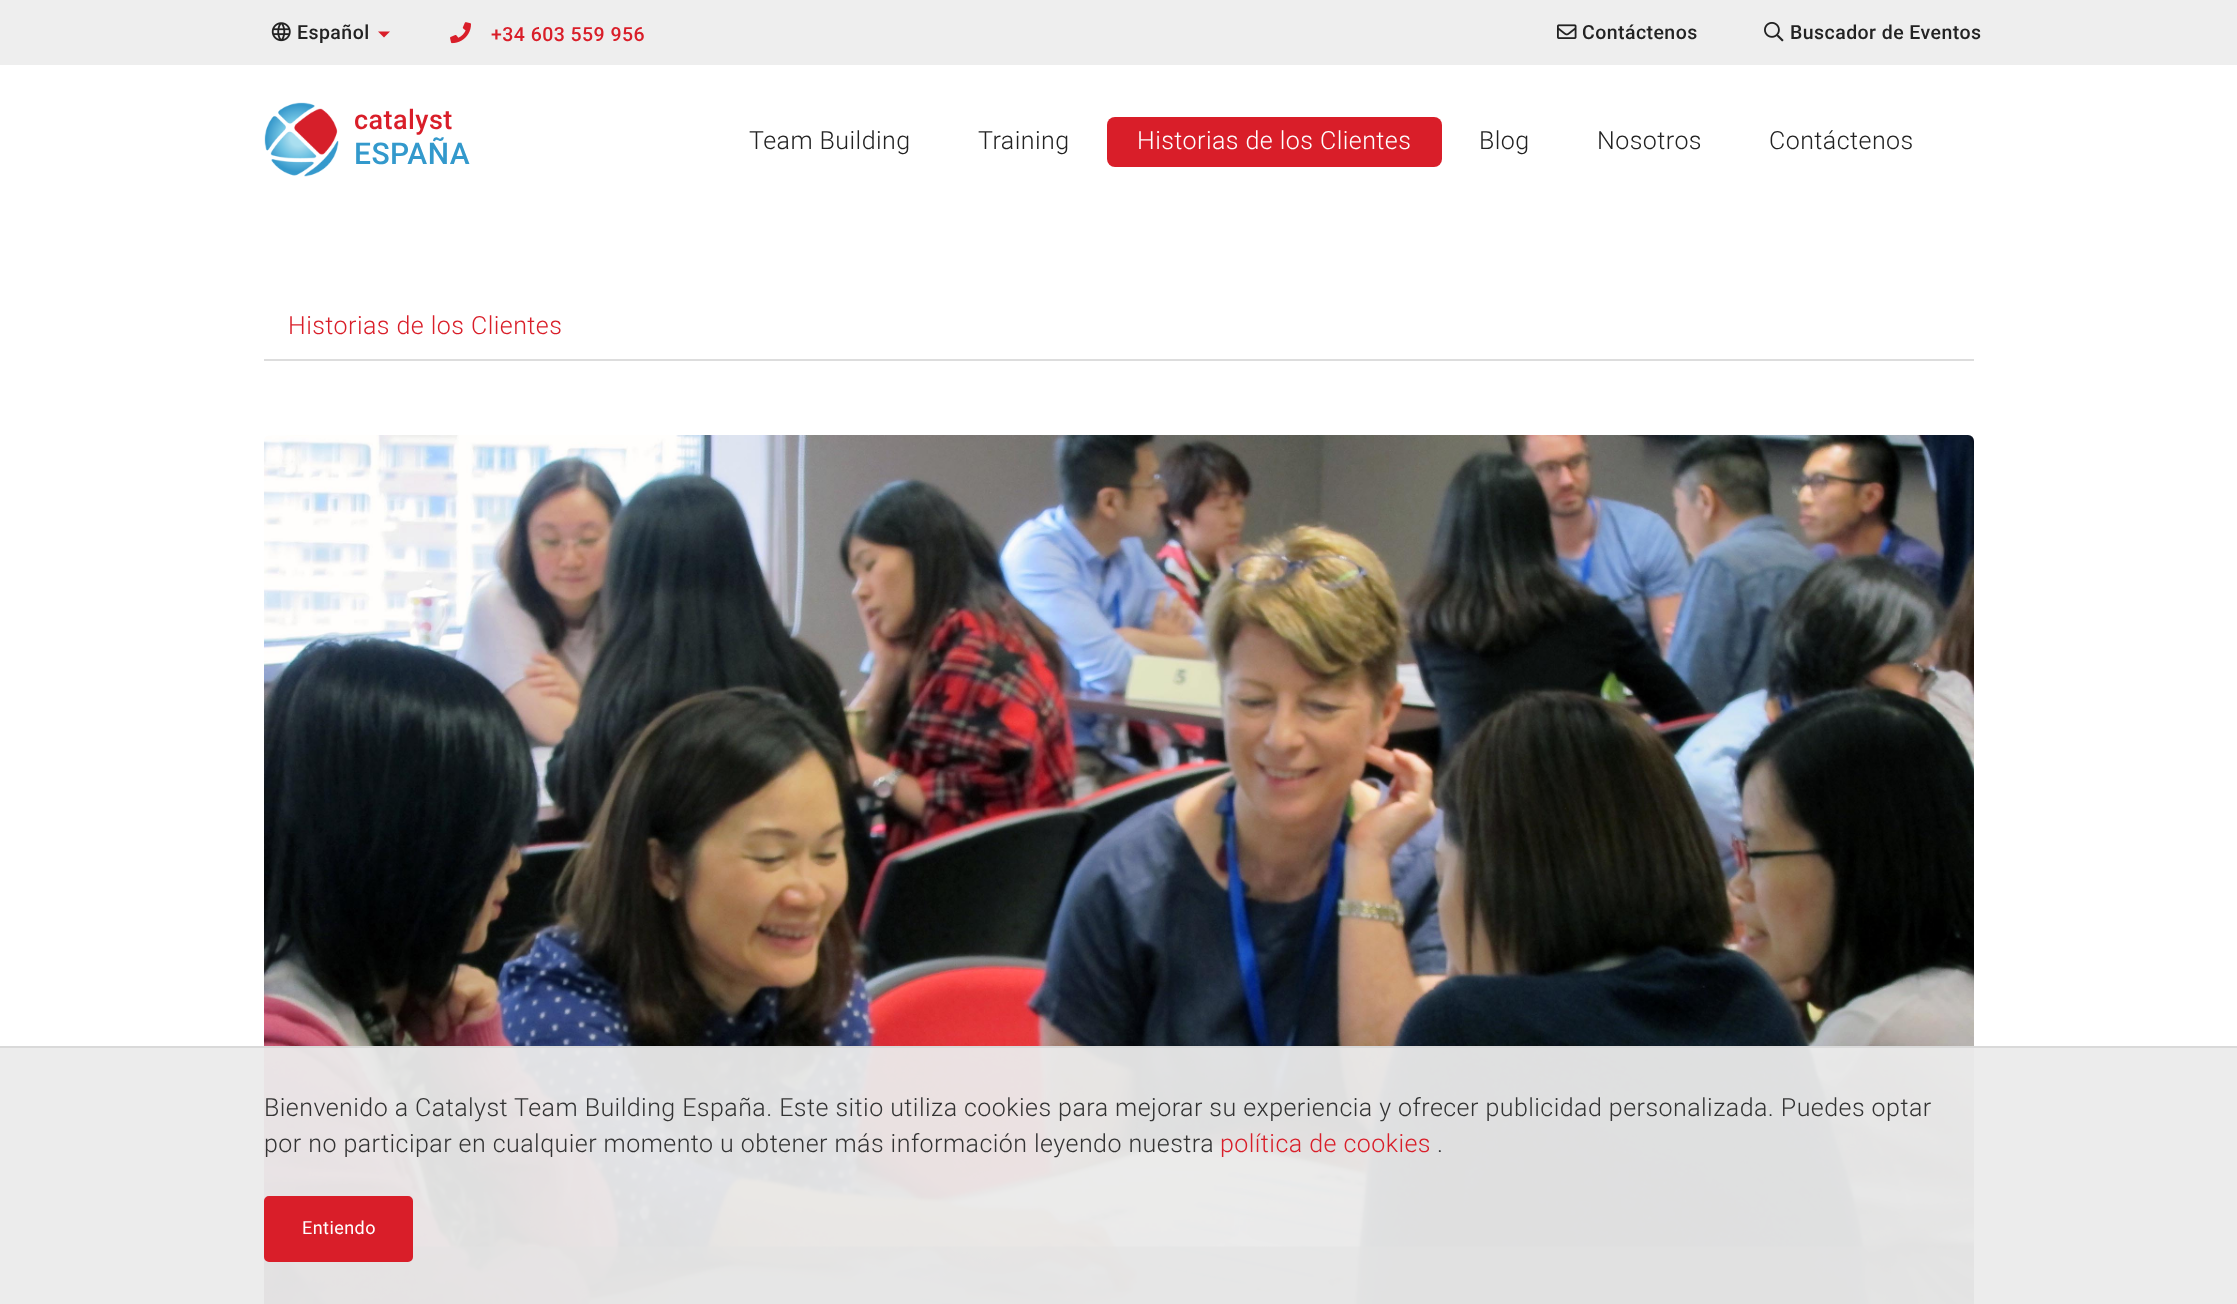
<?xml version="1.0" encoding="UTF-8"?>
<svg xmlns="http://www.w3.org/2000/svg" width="2237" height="1304">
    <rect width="100%" height="100%" fill="#FFFFFF"/>
    <rect x="0" y="0" width="2237" height="65" fill="#EEEEEE"/>
    <image x="271" y="22" width="20" height="20" href="img_01.png"/>
    <text x="297" y="39" font-family="Roboto" font-size="19.5" font-weight="500" letter-spacing="0.45" fill="#222222">Español</text>
    <path d="M 378 31.5 H 390 L 384 37.5 Z" fill="#D91E29"/>
    <image x="450" y="22" width="21" height="22" href="img_02.png"/>
    <text x="491" y="41" font-family="Roboto" font-size="19.5" font-weight="500" letter-spacing="0.45" fill="#D91E29">+34 603 559 956</text>
    <image x="1557" y="24" width="20" height="15" href="img_03.png"/>
    <text x="1582" y="39" font-family="Roboto" font-size="19.5" font-weight="500" letter-spacing="0.45" fill="#222222">Contáctenos</text>
    <image x="1764" y="22" width="20" height="20" href="img_04.png"/>
    <text x="1790" y="39" font-family="Roboto" font-size="19.5" font-weight="500" letter-spacing="0.45" fill="#222222">Buscador de Eventos</text>
    <image x="264" y="102" width="75" height="75" href="img_05.png"/>
    <text x="354" y="129" font-family="Roboto" font-size="27" font-weight="500" letter-spacing="0.45" fill="#D91E29">catalyst</text>
    <text x="354" y="164" font-family="Roboto" font-size="30" font-weight="500" letter-spacing="0.45" fill="#3399CC">ESPAÑA</text>
    <text x="749" y="149" font-family="Roboto" font-size="25" font-weight="300" letter-spacing="0.45" fill="#222222">Team Building</text>
    <text x="978" y="149" font-family="Roboto" font-size="25" font-weight="300" letter-spacing="0.45" fill="#222222">Training</text>
    <rect x="1107" y="117" width="335" height="50" rx="8" fill="#D91E29"/>
    <text x="1137" y="149" font-family="Roboto" font-size="25" font-weight="300" letter-spacing="0.45" fill="#FFFFFF">Historias de los Clientes</text>
    <text x="1479" y="149" font-family="Roboto" font-size="25" font-weight="300" letter-spacing="0.45" fill="#222222">Blog</text>
    <text x="1597" y="149" font-family="Roboto" font-size="25" font-weight="300" letter-spacing="0.45" fill="#222222">Nosotros</text>
    <text x="1769" y="149" font-family="Roboto" font-size="25" font-weight="300" letter-spacing="0.45" fill="#222222">Contáctenos</text>
    <rect x="264" y="359" width="1710" height="2" fill="#DDDDDD"/>
    <text x="288" y="334" font-family="Roboto" font-size="25" font-weight="300" letter-spacing="0.45" fill="#D91E29">Historias de los Clientes</text>
    <image x="264" y="435" width="1710" height="869" href="img_06.png"/>
    <rect x="0" y="1048" width="2237" height="256" fill="#EBEBEB" fill-opacity="0.95"/>
    <rect x="0" y="1046" width="2237" height="2" fill="#D9D9D9"/>
    <text font-family="Roboto" font-size="25" font-weight="300" letter-spacing="0.45" fill="#333333">
        <tspan x="264" y="1116">Bienvenido a Catalyst Team Building España. Este sitio utiliza cookies para mejorar su experiencia y ofrecer publicidad personalizada. Puedes optar</tspan>
        <tspan x="264" y="1152">por no participar en cualquier momento u obtener más información leyendo nuestra</tspan>
    </text>
    <text x="1220" y="1152" font-family="Roboto" font-size="25" font-weight="300" letter-spacing="0.45" fill="#D91E29">política de cookies</text>
    <text x="1437" y="1152" font-family="Roboto" font-size="25" font-weight="300" letter-spacing="0.45" fill="#333333">.</text>
    <rect x="265" y="1197" width="147" height="64" rx="4" fill="#D91E29" stroke="#D91E29" stroke-width="2"/>
    <text x="302" y="1234" font-family="Roboto" font-size="18" letter-spacing="0.45" fill="#FFFFFF">Entiendo</text>
</svg>
